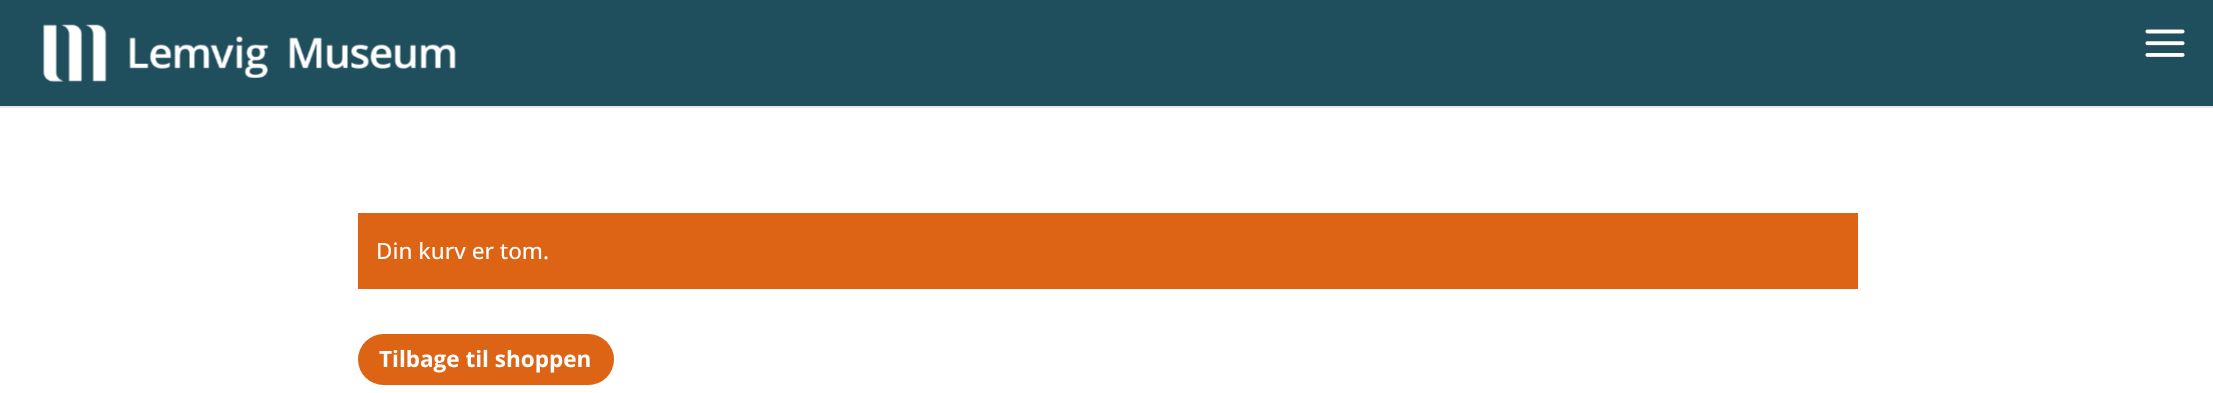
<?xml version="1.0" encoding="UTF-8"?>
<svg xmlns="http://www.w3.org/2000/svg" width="2213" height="393">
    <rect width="100%" height="100%" fill="#FFFFFF"/>
    <path d="M 0 106 V 108 H 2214 V 1 V 106 Z" fill="#E6E6E6"/>
    <rect x="0" y="0" width="2213" height="106" fill="#1F4E5D"/>
    <image x="43" y="24" width="413" height="58" href="img_01.png"/>
    <image x="2145" y="29" width="40" height="28" href="img_02.png"/>
    <rect x="358" y="213" width="1500" height="76" fill="#DC6414"/>
    <text x="376" y="259" font-family="Open Sans" font-size="22.5" font-weight="500" fill="#FFFFFF">Din kurv er tom.</text>
    <rect x="358" y="334" width="256" height="51" rx="25.5" fill="#DC6414"/>
    <text x="379" y="367" font-family="Open Sans" font-size="22.5" font-weight="700" fill="#FFFFFF">Tilbage til shoppen</text>
</svg>
